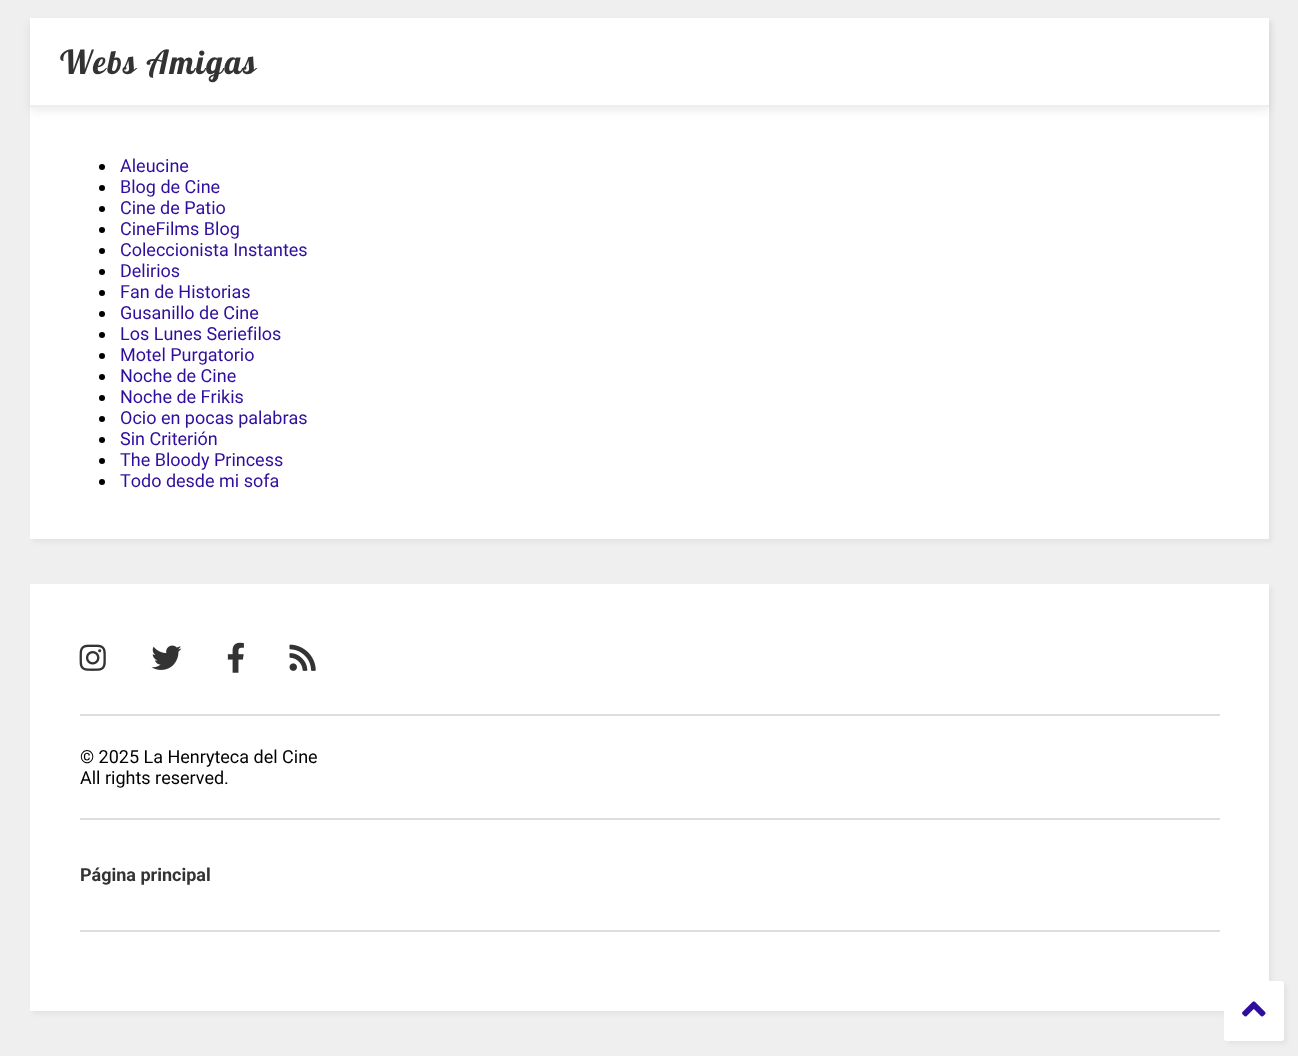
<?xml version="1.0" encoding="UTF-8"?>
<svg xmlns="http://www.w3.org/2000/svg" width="1298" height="1056">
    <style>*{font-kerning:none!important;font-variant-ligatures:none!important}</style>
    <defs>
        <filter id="blur1" x="-50%" y="-200%" width="200%" height="500%"><feGaussianBlur stdDeviation="2"/></filter>
        <clipPath id="clip1"><path d="M 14 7 H 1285 V 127 H 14 Z M 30 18 H 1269 V 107 H 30 Z" clip-rule="evenodd"/></clipPath>
        <filter id="blur2" x="-50%" y="-200%" width="200%" height="500%"><feGaussianBlur stdDeviation="5"/></filter>
    </defs>
    <rect width="100%" height="100%" fill="#EFEFEF"/>
    <rect x="33" y="21" width="1239" height="521" fill="#000000" fill-opacity="0.05" filter="url(#blur1)"/>
    <rect x="30" y="18" width="1239" height="521" fill="#FFFFFF"/>
    <g clip-path="url(#clip1)">
        <rect x="30" y="23" width="1239" height="88" fill="#000000" fill-opacity="0.07" filter="url(#blur2)"/>
    </g>
    <rect x="30" y="105" width="1239" height="2" fill="#EEEEEE"/>
    <text x="60" y="74" font-family="Lobster" font-size="33" letter-spacing="1.5" fill="#333333">Webs Amigas</text>
    <circle cx="102" cy="167" r="3" fill="#000000"/>
    <text x="120" y="172" font-family="Roboto" font-size="18" fill="#300E9D">Aleucine</text>
    <circle cx="102" cy="188" r="3" fill="#000000"/>
    <text x="120" y="193" font-family="Roboto" font-size="18" fill="#300E9D">Blog de Cine</text>
    <circle cx="102" cy="209" r="3" fill="#000000"/>
    <text x="120" y="214" font-family="Roboto" font-size="18" fill="#300E9D">Cine de Patio</text>
    <circle cx="102" cy="230" r="3" fill="#000000"/>
    <text x="120" y="235" font-family="Roboto" font-size="18" fill="#300E9D">CineFilms Blog</text>
    <circle cx="102" cy="251" r="3" fill="#000000"/>
    <text x="120" y="256" font-family="Roboto" font-size="18" fill="#300E9D">Coleccionista Instantes</text>
    <circle cx="102" cy="272" r="3" fill="#000000"/>
    <text x="120" y="277" font-family="Roboto" font-size="18" fill="#300E9D">Delirios</text>
    <circle cx="102" cy="293" r="3" fill="#000000"/>
    <text x="120" y="298" font-family="Roboto" font-size="18" fill="#300E9D">Fan de Historias</text>
    <circle cx="102" cy="314" r="3" fill="#000000"/>
    <text x="120" y="319" font-family="Roboto" font-size="18" fill="#300E9D">Gusanillo de Cine</text>
    <circle cx="102" cy="335" r="3" fill="#000000"/>
    <text x="120" y="340" font-family="Roboto" font-size="18" fill="#300E9D">Los Lunes Seriefilos</text>
    <circle cx="102" cy="356" r="3" fill="#000000"/>
    <text x="120" y="361" font-family="Roboto" font-size="18" fill="#300E9D">Motel Purgatorio</text>
    <circle cx="102" cy="377" r="3" fill="#000000"/>
    <text x="120" y="382" font-family="Roboto" font-size="18" fill="#300E9D">Noche de Cine</text>
    <circle cx="102" cy="398" r="3" fill="#000000"/>
    <text x="120" y="403" font-family="Roboto" font-size="18" fill="#300E9D">Noche de Frikis</text>
    <circle cx="102" cy="419" r="3" fill="#000000"/>
    <text x="120" y="424" font-family="Roboto" font-size="18" fill="#300E9D">Ocio en pocas palabras</text>
    <circle cx="102" cy="440" r="3" fill="#000000"/>
    <text x="120" y="445" font-family="Roboto" font-size="18" fill="#300E9D">Sin Criterión</text>
    <circle cx="102" cy="461" r="3" fill="#000000"/>
    <text x="120" y="466" font-family="Roboto" font-size="18" fill="#300E9D">The Bloody Princess</text>
    <circle cx="102" cy="482" r="3" fill="#000000"/>
    <text x="120" y="487" font-family="Roboto" font-size="18" fill="#300E9D">Todo desde mi sofa</text>
    <rect x="33" y="587" width="1239" height="427" fill="#000000" fill-opacity="0.05" filter="url(#blur1)"/>
    <rect x="30" y="584" width="1239" height="427" fill="#FFFFFF"/>
    <rect x="80" y="714" width="1140" height="2" fill="#DDDDDD"/>
    <image x="79" y="644" width="27" height="27" href="img_01.png"/>
    <image x="151" y="645" width="31" height="25" href="img_02.png"/>
    <image x="227" y="642" width="17" height="31" href="img_03.png"/>
    <image x="289" y="644" width="27" height="27" href="img_04.png"/>
    <text font-family="Roboto" font-size="18" fill="#000000">
        <tspan x="80" y="763">© 2025 La Henryteca del Cine</tspan>
        <tspan x="80" y="784">All rights reserved.</tspan>
    </text>
    <rect x="80" y="818" width="1140" height="2" fill="#DDDDDD"/>
    <text x="80" y="881" font-family="Roboto" font-size="18" font-weight="700" fill="#333333">Página principal</text>
    <rect x="80" y="930" width="1140" height="2" fill="#DDDDDD"/>
    <rect x="1227" y="984" width="60" height="60" rx="3" fill="#000000" fill-opacity="0.05" filter="url(#blur1)"/>
    <rect x="1224" y="981" width="60" height="60" rx="3" fill="#FFFFFF"/>
    <image x="1242" y="1001" width="24" height="16" href="img_05.png"/>
</svg>
